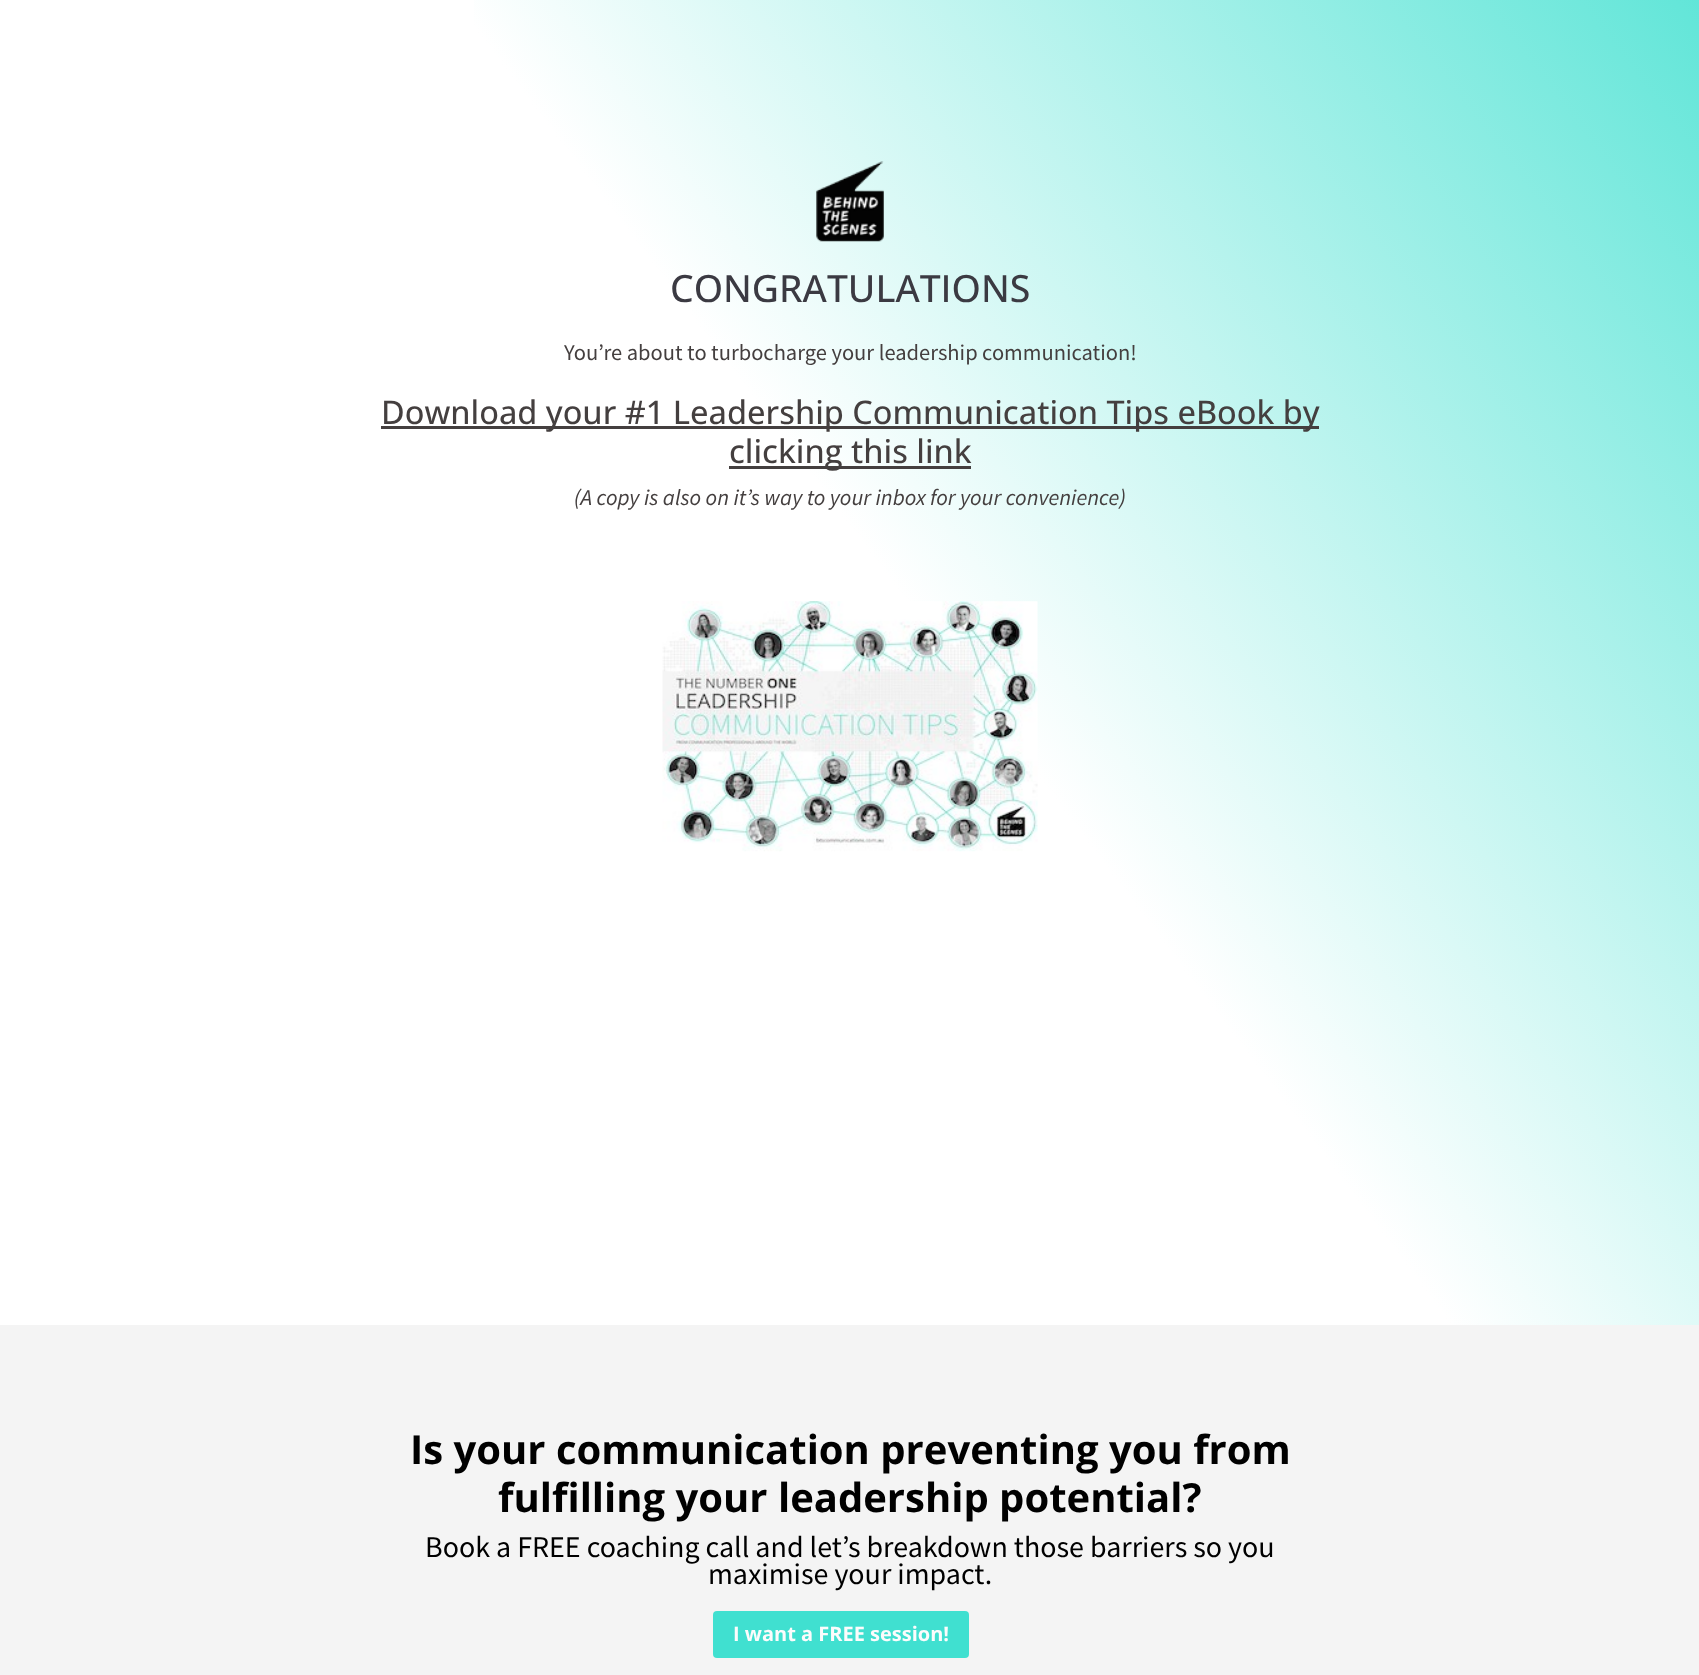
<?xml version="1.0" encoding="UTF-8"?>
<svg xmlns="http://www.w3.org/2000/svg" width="1699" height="1675">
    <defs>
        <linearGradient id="g1" gradientUnits="userSpaceOnUse" x1="-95" y1="1199" x2="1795" y2="-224"><stop offset="0.49" stop-color="#FFFFFF"/><stop offset="1" stop-color="#40E0D0"/></linearGradient>
    </defs>
    <rect width="100%" height="100%" fill="#FFFFFF"/>
    <rect x="474" y="0" width="1225" height="1325" fill="url(#g1)"/>
    <image x="816" y="161" width="68" height="81" href="img_01.png"/>
    <text x="670" y="302" font-family="Open Sans" font-size="37.5" font-weight="500" fill="#3B3A42">CONGRATULATIONS</text>
    <text x="564" y="360" font-family="Source Sans Pro" font-size="22.5" fill="#443F3F">You’re about to turbocharge your leadership communication!</text>
    <rect x="381" y="426" width="938" height="3" fill="#443F3F"/>
    <text x="381" y="424" font-family="Open Sans" font-size="32.5" font-weight="500" fill="#443F3F">Download your #1 Leadership Communication Tips eBook by</text>
    <rect x="729" y="466" width="242" height="3" fill="#443F3F"/>
    <text x="729" y="463" font-family="Open Sans" font-size="32.5" font-weight="500" fill="#443F3F">clicking this link</text>
    <text x="574" y="505" font-family="Source Sans Pro" font-size="22.5" font-style="italic" fill="#443F3F">(A copy is also on it’s way to your inbox for your convenience)</text>
    <image x="662" y="601" width="376" height="251" href="img_02.png"/>
    <rect x="0" y="1325" width="1699" height="350" fill="#F4F4F4"/>
    <text x="410" y="1464" font-family="Open Sans" font-size="40" font-weight="700" fill="#000000">Is your communication preventing you from</text>
    <text x="498" y="1512" font-family="Open Sans" font-size="40" font-weight="700" fill="#000000">fulfilling your leadership potential?</text>
    <text x="425" y="1557" font-family="Source Sans Pro" font-size="30" fill="#000000">Book a FREE coaching call and let’s breakdown those barriers so you</text>
    <text x="708" y="1584" font-family="Source Sans Pro" font-size="30" fill="#000000">maximise your impact.</text>
    <rect x="713" y="1611" width="256" height="47" rx="4" fill="#40E0D0"/>
    <text x="733" y="1641" font-family="Open Sans" font-size="20" font-weight="700" fill="#FCFCFC">I want a FREE session!</text>
</svg>
